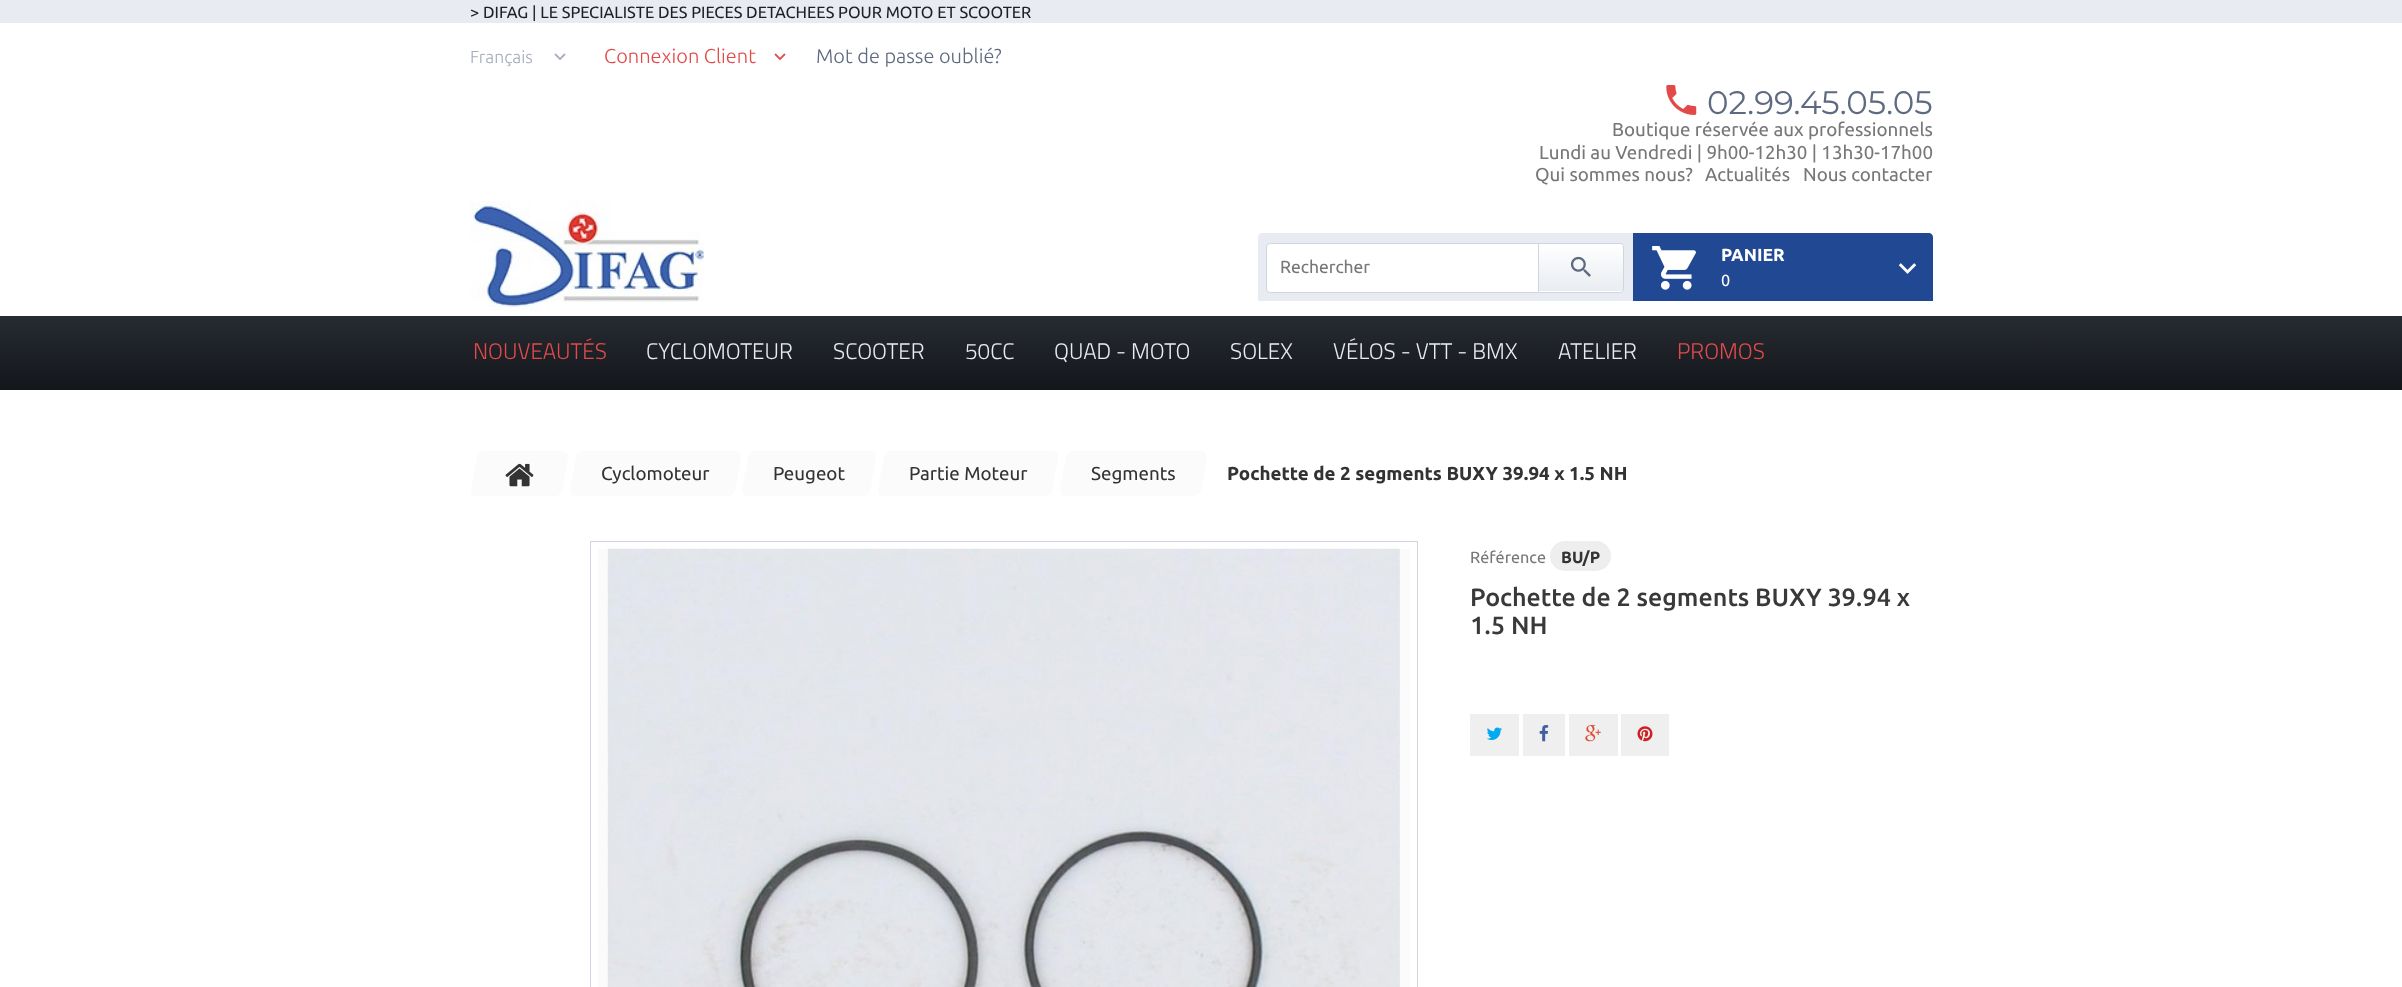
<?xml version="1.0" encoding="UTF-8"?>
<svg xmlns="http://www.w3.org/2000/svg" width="2402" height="987">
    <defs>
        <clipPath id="clip1"><path d="M 1538 243 H 1620 C 1622 243 1624 245 1624 247 V 289 C 1624 291 1622 293 1620 293 H 1538 Z"/></clipPath>
        <linearGradient id="g1" gradientUnits="userSpaceOnUse" x1="1581" y1="244" x2="1581" y2="291"><stop offset="0" stop-color="#FFFFFF"/><stop offset="1" stop-color="#E9ECF1"/></linearGradient>
        <linearGradient id="g2" gradientUnits="userSpaceOnUse" x1="1581" y1="291" x2="1581" y2="339"><stop offset="0" stop-color="#FFFFFF"/><stop offset="1" stop-color="#E9ECF1"/></linearGradient>
        <linearGradient id="g3" gradientUnits="userSpaceOnUse" x1="451" y1="316" x2="451" y2="390"><stop offset="0" stop-color="#272C32"/><stop offset="1" stop-color="#13161B"/></linearGradient>
    </defs>
    <rect width="100%" height="100%" fill="#FFFFFF"/>
    <rect x="0" y="0" width="2402" height="23" fill="#E8EBF1"/>
    <text x="470" y="18" font-family="Ubuntu" font-size="16.25" fill="#1C1F25">&gt; DIFAG | LE SPECIALISTE DES PIECES DETACHEES POUR MOTO ET SCOOTER</text>
    <text x="470" y="63" font-family="Ubuntu" font-size="17.5" font-weight="300" fill="#A4ADBB">Français</text>
    <image x="554" y="53" width="12" height="7" href="img_01.png"/>
    <text x="604" y="63" font-family="Ubuntu" font-size="20" font-weight="300" fill="#E24A4A">Connexion Client</text>
    <image x="774" y="53" width="12" height="8" href="img_02.png"/>
    <text x="816" y="63" font-family="Ubuntu" font-size="20" font-weight="300" fill="#5D6A7F">Mot de passe oublié?</text>
    <image x="1666" y="85" width="31" height="30" href="img_03.png"/>
    <text x="1707" y="114" font-family="Montserrat" font-size="32.5" fill="#5D6A7F">02.99.45.05.05</text>
    <text x="1612" y="136" font-family="Ubuntu" font-size="18.75" fill="#777777">Boutique réservée aux professionnels</text>
    <text x="1539" y="159" font-family="Ubuntu" font-size="18.75" fill="#777777">Lundi au Vendredi | 9h00-12h30 | 13h30-17h00</text>
    <text x="1535" y="181" font-family="Ubuntu" font-size="18.75" fill="#777777">Qui sommes nous?</text>
    <text x="1705" y="181" font-family="Ubuntu" font-size="18.75" fill="#777777">Actualités</text>
    <text x="1803" y="181" font-family="Ubuntu" font-size="18.75" fill="#777777">Nous contacter</text>
    <image x="470" y="201" width="234" height="111" href="img_04.png"/>
    <path d="M 1262 233 H 1633 V 301 H 1258 V 237 C 1258 235 1260 233 1262 233 Z" fill="#E8EBF1"/>
    <rect x="1266.5" y="243.5" width="357" height="49" rx="3.5" fill="#FFFFFF" stroke="#D0D6E1"/>
    <text x="1280" y="273" font-family="Ubuntu" font-size="17.5" fill="#777777">Rechercher</text>
    <g clip-path="url(#clip1)">
        <rect x="1539" y="244" width="85" height="47" fill="url(#g1)"/>
        <rect x="1538" y="291" width="86" height="2" fill="url(#g2)"/>
    </g>
    <path d="M 1538.5 243.5 H 1620 C 1622 243.5 1623.5 245 1623.5 247 V 289 C 1623.5 291 1622 292.5 1620 292.5 H 1538.5 Z" fill="none" stroke="#D0D6E1"/>
    <image x="1570" y="256" width="21" height="21" href="img_05.png"/>
    <path d="M 1633 233 H 1929 C 1931 233 1933 235 1933 237 V 301 H 1633 Z" fill="#214893"/>
    <image x="1652" y="246" width="44" height="44" href="img_06.png"/>
    <text x="1721" y="261" font-family="Ubuntu" font-size="17.5" font-weight="700" fill="#FFFFFF">PANIER</text>
    <image x="1898" y="263" width="19" height="11" href="img_07.png"/>
    <text x="1721" y="286" font-family="Ubuntu" font-size="16.25" fill="#FFFFFF">0</text>
    <rect x="0" y="316" width="2402" height="74" fill="url(#g3)"/>
    <text x="473" y="359" font-family="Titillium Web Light" font-size="22.5" font-weight="300" fill="#E24A4A">NOUVEAUTÉS</text>
    <text x="646" y="359" font-family="Titillium Web Light" font-size="22.5" font-weight="300" fill="#E8EBF1">CYCLOMOTEUR</text>
    <text x="833" y="359" font-family="Titillium Web Light" font-size="22.5" font-weight="300" fill="#E8EBF1">SCOOTER</text>
    <text x="965" y="359" font-family="Titillium Web Light" font-size="22.5" font-weight="300" fill="#E8EBF1">50CC</text>
    <text x="1054" y="359" font-family="Titillium Web Light" font-size="22.5" font-weight="300" fill="#E8EBF1">QUAD - MOTO</text>
    <text x="1230" y="359" font-family="Titillium Web Light" font-size="22.5" font-weight="300" fill="#E8EBF1">SOLEX</text>
    <text x="1333" y="359" font-family="Titillium Web Light" font-size="22.5" font-weight="300" fill="#E8EBF1">VÉLOS - VTT - BMX</text>
    <text x="1558" y="359" font-family="Titillium Web Light" font-size="22.5" font-weight="300" fill="#E8EBF1">ATELIER</text>
    <text x="1677" y="359" font-family="Titillium Web Light" font-size="22.5" font-weight="300" fill="#E24A4A">PROMOS</text>
    <rect x="501" y="451" width="37" height="45" fill="#FBFBFB"/>
    <image x="505" y="463" width="29" height="24" href="img_08.png"/>
    <path d="M 484 451 H 509 L 501 496 H 476 C 473 496 470 493 471 490 L 477 458 C 477 454 481 451 484 451 Z" fill="#FBFBFB"/>
    <path d="M 538 451 H 563 C 566 451 569 454 568 458 L 562 490 C 562 493 559 496 555 496 H 530 Z" fill="#FBFBFB"/>
    <rect x="588" y="451" width="141" height="45" fill="#FBFBFB"/>
    <path d="M 583 451 H 595 L 588 496 H 575 C 572 496 569 493 570 490 L 576 458 C 576 454 580 451 583 451 Z" fill="#FBFBFB"/>
    <text x="601" y="480" font-family="Ubuntu" font-size="18.75" fill="#333333">Cyclomoteur</text>
    <path d="M 723 451 C 745 451 742 450 738 474 C 734 497 737 496 715 496 Z" fill="#FBFBFB"/>
    <rect x="760" y="451" width="104" height="45" fill="#FBFBFB"/>
    <path d="M 755 451 H 768 L 760 496 H 747 C 744 496 742 493 742 490 L 748 458 C 749 454 752 451 755 451 Z" fill="#FBFBFB"/>
    <text x="773" y="480" font-family="Ubuntu" font-size="18.75" fill="#333333">Peugeot</text>
    <path d="M 859 451 C 880 451 877 450 873 474 C 869 497 873 496 851 496 Z" fill="#FBFBFB"/>
    <rect x="890" y="451" width="156" height="45" fill="#FBFBFB"/>
    <path d="M 891 451 H 904 L 896 496 H 883 C 880 496 877 493 878 490 L 884 458 C 884 454 888 451 891 451 Z" fill="#FBFBFB"/>
    <text x="909" y="480" font-family="Ubuntu" font-size="18.75" fill="#333333">Partie Moteur</text>
    <path d="M 1041 451 C 1063 451 1060 450 1055 474 C 1051 497 1055 496 1033 496 Z" fill="#FBFBFB"/>
    <rect x="1078" y="451" width="117" height="45" fill="#FBFBFB"/>
    <path d="M 1073 451 H 1086 L 1078 496 H 1065 C 1062 496 1060 493 1060 490 L 1066 458 C 1066 454 1070 451 1073 451 Z" fill="#FBFBFB"/>
    <text x="1091" y="480" font-family="Ubuntu" font-size="18.75" fill="#333333">Segments</text>
    <path d="M 1189 451 C 1211 451 1208 450 1204 474 C 1200 497 1203 496 1181 496 Z" fill="#FBFBFB"/>
    <text x="1227" y="480" font-family="Ubuntu" font-size="18.75" font-weight="700" fill="#333333">Pochette de 2 segments BUXY 39.94 x 1.5 NH</text>
    <rect x="590.5" y="541.5" width="827" height="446" fill="none" stroke="#D0D6E1"/>
    <rect x="598" y="549" width="812" height="438" fill="#FBFBFB"/>
    <image x="607" y="548" width="793" height="439" href="img_09.png"/>
    <text x="1470" y="563" font-family="Ubuntu" font-size="16.25" fill="#777777">Référence</text>
    <rect x="1550" y="541" width="61" height="30" rx="15" fill="#EEEEEE"/>
    <text x="1561" y="563" font-family="Ubuntu" font-size="16.25" font-weight="700" fill="#333333">BU/P</text>
    <text font-family="Ubuntu" font-size="25" font-weight="500" fill="#3A3939">
        <tspan x="1470" y="606">Pochette de 2 segments BUXY 39.94 x</tspan>
        <tspan x="1470" y="634">1.5 NH</tspan>
    </text>
    <rect x="1470" y="714" width="49" height="42" fill="#EFEFEF"/>
    <image x="1486" y="727" width="16" height="13" href="img_10.png"/>
    <rect x="1523" y="714" width="42" height="42" fill="#EFEFEF"/>
    <image x="1539" y="725" width="10" height="17" href="img_11.png"/>
    <rect x="1569" y="714" width="49" height="42" fill="#EFEFEF"/>
    <image x="1585" y="725" width="16" height="17" href="img_12.png"/>
    <rect x="1621" y="714" width="48" height="42" fill="#EFEFEF"/>
    <image x="1637" y="726" width="16" height="16" href="img_13.png"/>
</svg>
